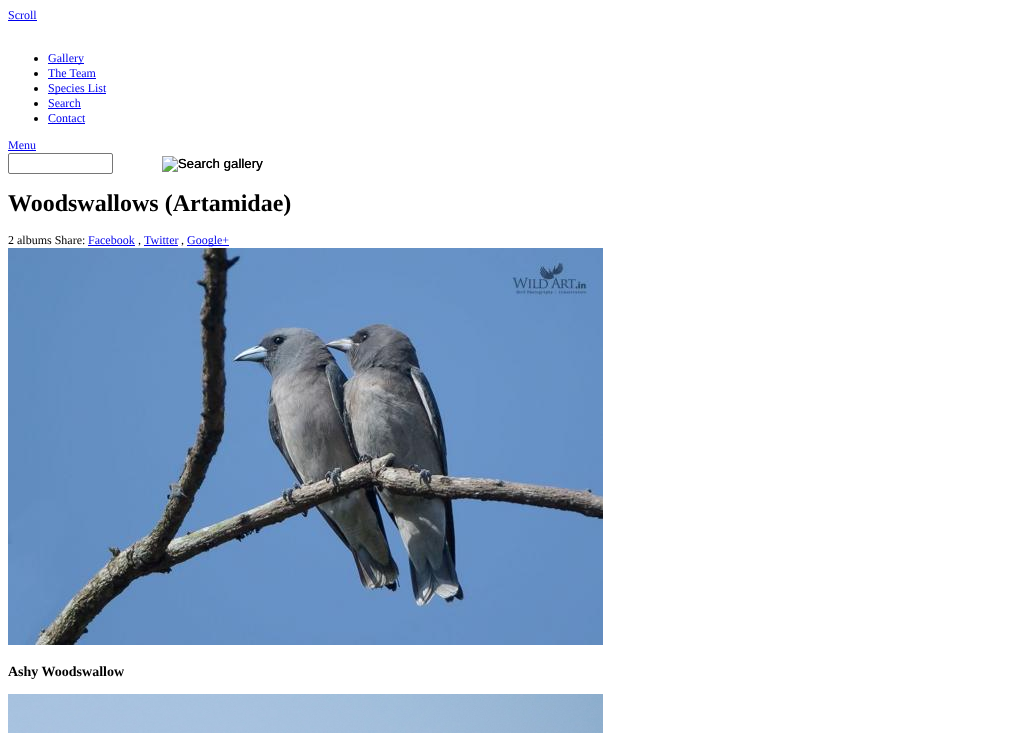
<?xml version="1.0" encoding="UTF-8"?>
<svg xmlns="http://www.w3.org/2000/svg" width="1020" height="733">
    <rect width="100%" height="100%" fill="#FFFFFF"/>
    <text x="8" y="19" font-family="Liberation Serif" font-size="12" fill="#0000EE">Scroll</text>
    <rect x="8" y="20" width="29" height="1" fill="#0000EE"/>
    <circle cx="36" cy="59" r="2" fill="#000000"/>
    <rect x="48" y="63" width="36" height="1" fill="#0000EE"/>
    <text x="48" y="62" font-family="Liberation Serif" font-size="12" fill="#0000EE">Gallery</text>
    <circle cx="36" cy="74" r="2" fill="#000000"/>
    <text x="48" y="77" font-family="Liberation Serif" font-size="12" fill="#0000EE">The Team</text>
    <rect x="48" y="78" width="48" height="1" fill="#0000EE"/>
    <circle cx="36" cy="89" r="2" fill="#000000"/>
    <rect x="48" y="93" width="58" height="1" fill="#0000EE"/>
    <text x="48" y="92" font-family="Liberation Serif" font-size="12" fill="#0000EE">Species List</text>
    <circle cx="36" cy="104" r="2" fill="#000000"/>
    <text x="48" y="107" font-family="Liberation Serif" font-size="12" fill="#0000EE">Search</text>
    <rect x="48" y="108" width="33" height="1" fill="#0000EE"/>
    <circle cx="36" cy="119" r="2" fill="#000000"/>
    <text x="48" y="122" font-family="Liberation Serif" font-size="12" fill="#0000EE">Contact</text>
    <rect x="48" y="123" width="37" height="1" fill="#0000EE"/>
    <text x="8" y="149" font-family="Liberation Serif" font-size="12" fill="#0000EE">Menu</text>
    <rect x="8" y="150" width="28" height="1" fill="#0000EE"/>
    <rect x="8.5" y="153.5" width="104" height="20" rx="1.5" fill="none" stroke="#767676"/>
    <image x="162" y="156" width="101" height="16" href="img_01.png"/>
    <text x="178" y="168" font-family="Liberation Sans" font-size="13.25" fill="#000000">Search gallery</text>
    <text x="8" y="211" font-family="Liberation Serif" font-size="24" font-weight="700" fill="#000000">Woodswallows (Artamidae)</text>
    <text x="8" y="244" font-family="Liberation Serif" font-size="12" fill="#000000">2 albums Share:</text>
    <text x="88" y="244" font-family="Liberation Serif" font-size="12" fill="#0000EE">Facebook</text>
    <text x="138" y="244" font-family="Liberation Serif" font-size="12" fill="#000000">,</text>
    <rect x="88" y="245" width="47" height="1" fill="#0000EE"/>
    <rect x="144" y="245" width="34" height="1" fill="#0000EE"/>
    <text x="144" y="244" font-family="Liberation Serif" font-size="12" fill="#0000EE">Twitter</text>
    <text x="181" y="244" font-family="Liberation Serif" font-size="12" fill="#000000">,</text>
    <rect x="187" y="245" width="42" height="1" fill="#0000EE"/>
    <text x="187" y="244" font-family="Liberation Serif" font-size="12" fill="#0000EE">Google+</text>
    <image x="8" y="248" width="595" height="397" href="img_02.png"/>
    <text x="8" y="676" font-family="Liberation Serif" font-size="14" font-weight="700" fill="#000000">Ashy Woodswallow</text>
    <image x="8" y="694" width="595" height="39" href="img_03.png"/>
</svg>
